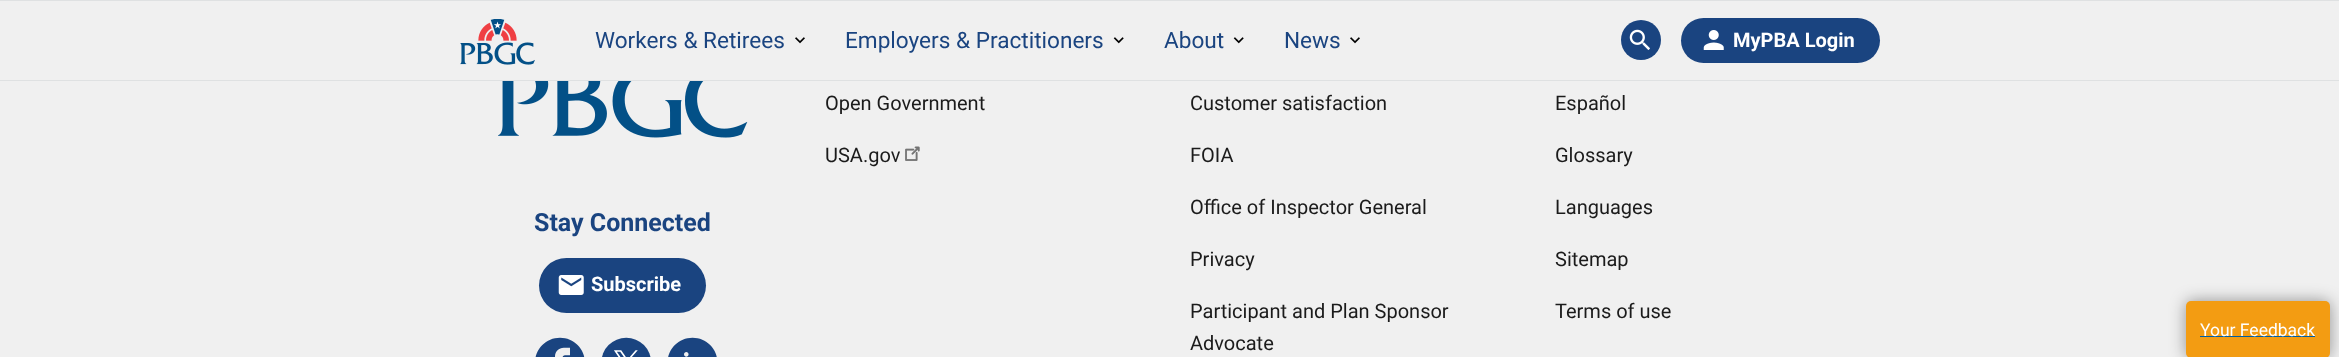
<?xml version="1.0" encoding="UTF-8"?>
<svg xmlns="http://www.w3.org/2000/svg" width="2339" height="357">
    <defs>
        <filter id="blur1" x="-50%" y="-200%" width="200%" height="500%"><feGaussianBlur stdDeviation="8"/></filter>
    </defs>
    <rect width="100%" height="100%" fill="#F0F0F0"/>
    <rect x="0" y="0" width="2339" height="1" fill="#DFE1E2"/>
    <rect x="0" y="80" width="2339" height="1" fill="#DFE1E2"/>
    <image x="460" y="19" width="75" height="46" href="img_01.png"/>
    <text x="595" y="48" font-family="Roboto" font-size="22.6" fill="#1A4480">Workers &amp; Retirees</text>
    <image x="795" y="37" width="10" height="7" href="img_02.png"/>
    <text x="845" y="48" font-family="Roboto" font-size="22.6" fill="#1A4480">Employers &amp; Practitioners</text>
    <image x="1113" y="37" width="11" height="7" href="img_03.png"/>
    <text x="1164" y="48" font-family="Roboto" font-size="22.6" fill="#1A4480">About</text>
    <image x="1233" y="37" width="11" height="7" href="img_03.png"/>
    <text x="1284" y="48" font-family="Roboto" font-size="22.6" fill="#1A4480">News</text>
    <image x="1350" y="37" width="10" height="7" href="img_02.png"/>
    <circle cx="1641" cy="40" r="20" fill="#1A4480"/>
    <image x="1629" y="29" width="21" height="21" href="img_04.png"/>
    <rect x="1681" y="18" width="199" height="45" rx="22.5" fill="#1A4480"/>
    <image x="1703" y="30" width="21" height="20" href="img_05.png"/>
    <text x="1733" y="47" font-family="Roboto" font-size="20" font-weight="700" fill="#FFFFFF">MyPBA Login</text>
    <image x="498" y="81" width="250" height="57" href="img_06.png"/>
    <text x="534" y="231" font-family="Roboto" font-size="25" font-weight="700" fill="#1A4480">Stay Connected</text>
    <rect x="539" y="258" width="167" height="55" rx="27.5" fill="#1A4480"/>
    <image x="558" y="275" width="26" height="20" href="img_07.png"/>
    <text x="591" y="291" font-family="Roboto" font-size="20" font-weight="700" fill="#FFFFFF">Subscribe</text>
    <image x="535" y="337" width="50" height="20" href="img_08.png"/>
    <image x="602" y="337" width="49" height="20" href="img_09.png"/>
    <image x="668" y="337" width="49" height="20" href="img_10.png"/>
    <text x="825" y="110" font-family="Roboto" font-size="20" fill="#1B1B1B">Open Government</text>
    <text x="825" y="162" font-family="Roboto" font-size="20" fill="#1B1B1B">USA.gov</text>
    <image x="905" y="146" width="15" height="15" href="img_11.png"/>
    <text x="1190" y="110" font-family="Roboto" font-size="20" fill="#1B1B1B">Customer satisfaction</text>
    <text x="1190" y="162" font-family="Roboto" font-size="20" fill="#1B1B1B">FOIA</text>
    <text x="1190" y="214" font-family="Roboto" font-size="20" fill="#1B1B1B">Office of Inspector General</text>
    <text x="1190" y="266" font-family="Roboto" font-size="20" fill="#1B1B1B">Privacy</text>
    <text font-family="Roboto" font-size="20" fill="#1B1B1B">
        <tspan x="1190" y="318">Participant and Plan Sponsor</tspan>
        <tspan x="1190" y="350">Advocate</tspan>
    </text>
    <text x="1555" y="110" font-family="Roboto" font-size="20" fill="#1B1B1B">Español</text>
    <text x="1555" y="162" font-family="Roboto" font-size="20" fill="#1B1B1B">Glossary</text>
    <text x="1555" y="214" font-family="Roboto" font-size="20" fill="#1B1B1B">Languages</text>
    <text x="1555" y="266" font-family="Roboto" font-size="20" fill="#1B1B1B">Sitemap</text>
    <text x="1555" y="318" font-family="Roboto" font-size="20" fill="#1B1B1B">Terms of use</text>
    <rect x="2186" y="301" width="144" height="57" rx="5" fill="#000000" fill-opacity="0.4" filter="url(#blur1)"/>
    <rect x="2186" y="301" width="144" height="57" rx="5" fill="#F39C12"/>
    <rect x="2200" y="336" width="115" height="1" fill="#005EA2"/>
    <text x="2200" y="336" font-family="Roboto" font-size="17.5" fill="#FFFFFF">Your Feedback</text>
</svg>
